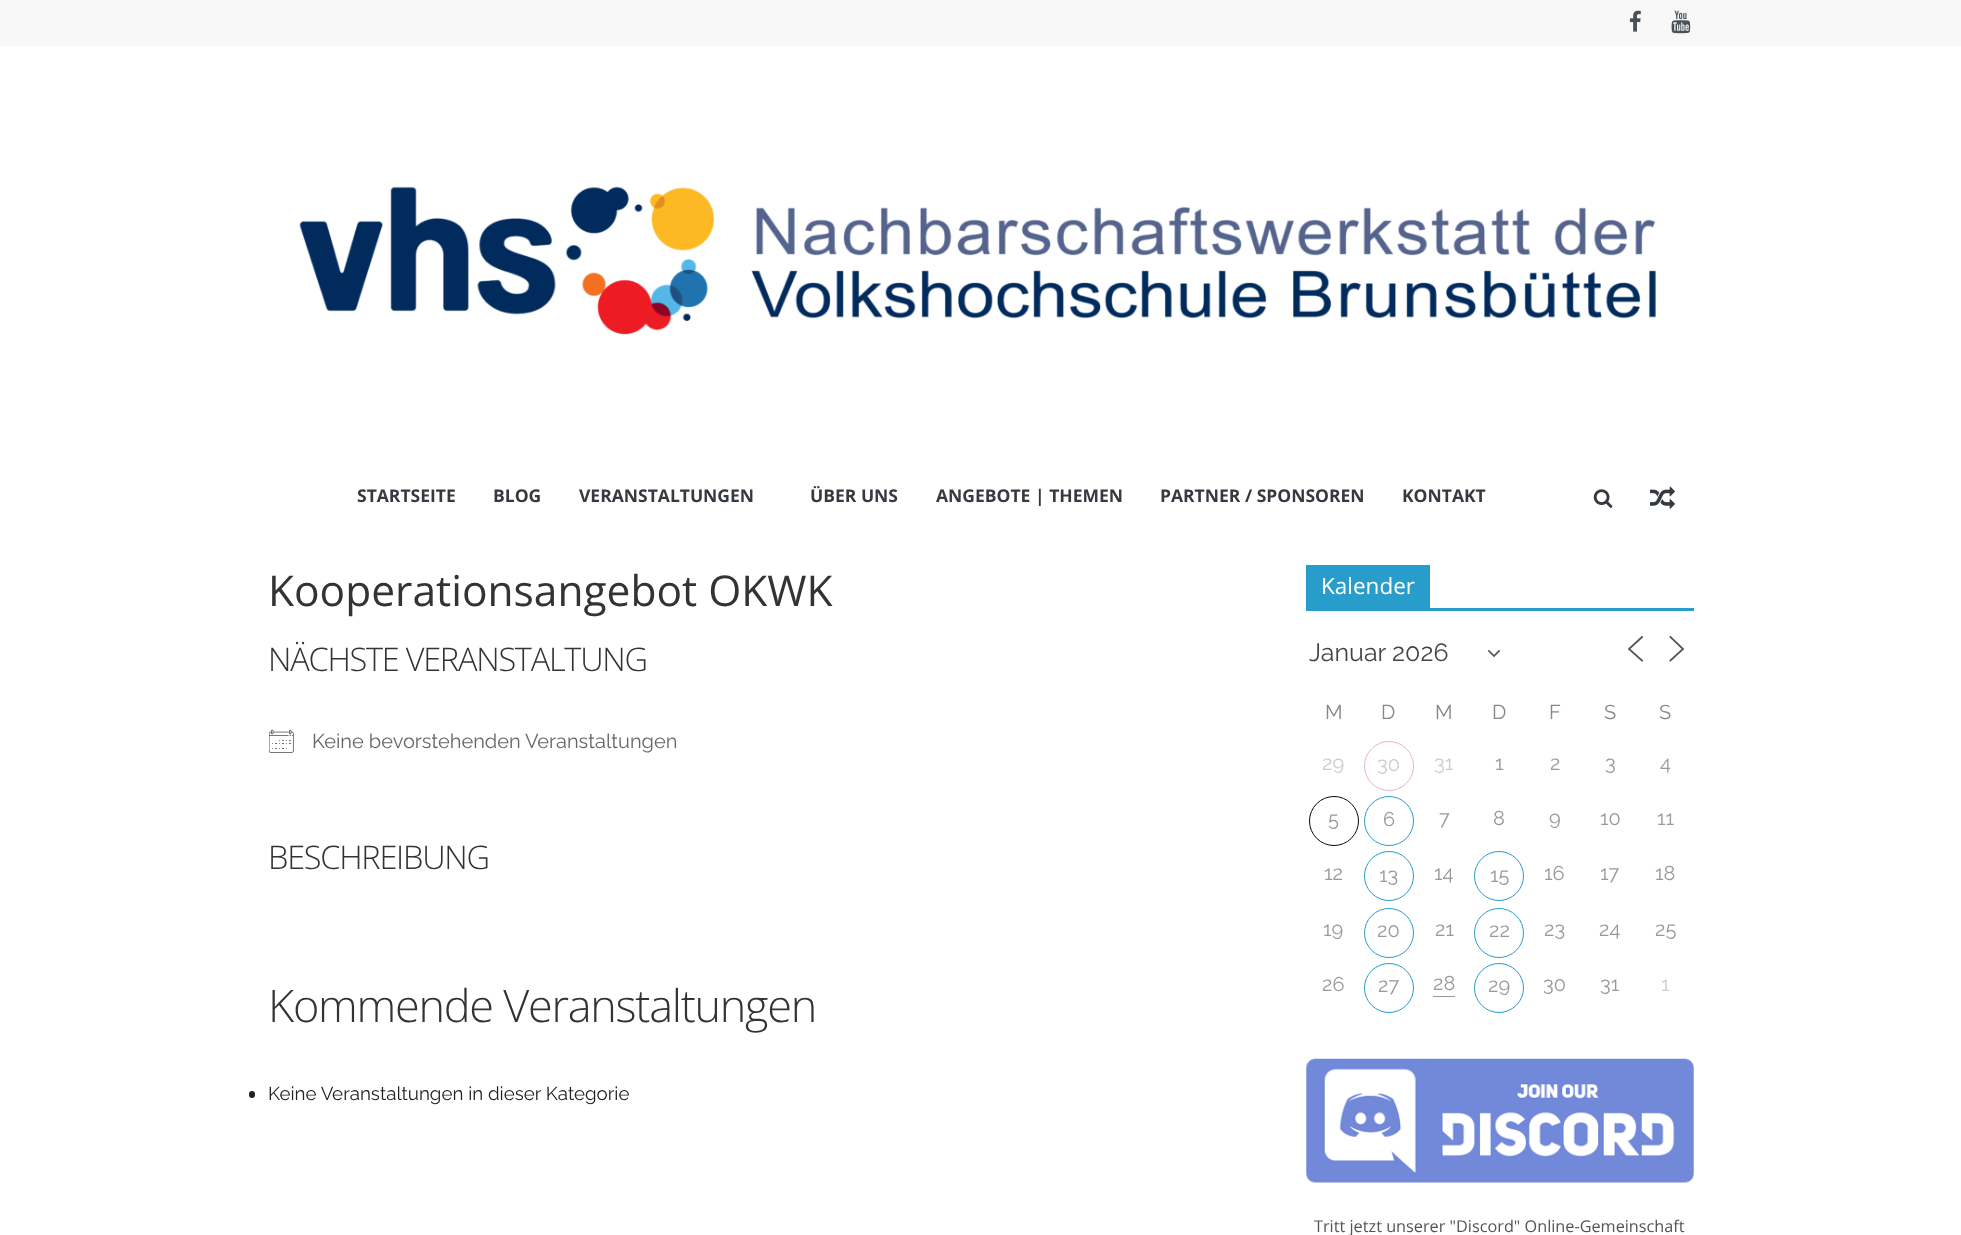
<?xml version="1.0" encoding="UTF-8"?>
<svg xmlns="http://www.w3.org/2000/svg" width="1961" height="1235">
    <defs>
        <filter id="blur1" x="-50%" y="-200%" width="200%" height="500%"><feGaussianBlur stdDeviation="1"/></filter>
    </defs>
    <rect width="100%" height="100%" fill="#FFFFFF"/>
    <rect x="0" y="0" width="1961" height="45" fill="#000000" fill-opacity="0.1" filter="url(#blur1)"/>
    <rect x="0" y="0" width="1961" height="45" fill="#F8F8F8"/>
    <image x="1629" y="10" width="12" height="22" href="img_01.png"/>
    <image x="1671" y="10" width="20" height="24" href="img_02.png"/>
    <image x="299" y="186" width="1357" height="149" href="img_03.png"/>
    <text x="357" y="502" font-family="Open Sans" font-size="17.5" font-weight="700" fill="#343A40">STARTSEITE</text>
    <text x="493" y="502" font-family="Open Sans" font-size="17.5" font-weight="700" fill="#343A40">BLOG</text>
    <text x="579" y="502" font-family="Open Sans" font-size="17.5" font-weight="700" fill="#343A40">VERANSTALTUNGEN</text>
    <text x="810" y="502" font-family="Open Sans" font-size="17.5" font-weight="700" fill="#343A40">ÜBER UNS</text>
    <text x="936" y="502" font-family="Open Sans" font-size="17.5" font-weight="700" fill="#343A40">ANGEBOTE | THEMEN</text>
    <text x="1160" y="502" font-family="Open Sans" font-size="17.5" font-weight="700" fill="#343A40">PARTNER / SPONSOREN</text>
    <text x="1402" y="502" font-family="Open Sans" font-size="17.5" font-weight="700" fill="#343A40">KONTAKT</text>
    <image x="1593" y="489" width="20" height="19" href="img_04.png"/>
    <image x="1650" y="486" width="25" height="23" href="img_05.png"/>
    <text x="268" y="606" font-family="Open Sans" font-size="42.5" fill="#333333">Kooperationsangebot OKWK</text>
    <text x="268" y="671" font-family="Open Sans" font-size="32.5" font-weight="300" letter-spacing="-1.25" fill="#333333">NÄCHSTE VERANSTALTUNG</text>
    <image x="269" y="729" width="25" height="24" href="img_06.png"/>
    <text x="312" y="748" font-family="Raleway" font-size="20" fill="#666666">Keine bevorstehenden Veranstaltungen</text>
    <text x="268" y="869" font-family="Open Sans" font-size="32.5" font-weight="300" letter-spacing="-1.25" fill="#333333">BESCHREIBUNG</text>
    <text x="268" y="1022" font-family="Open Sans" font-size="45" font-weight="300" letter-spacing="-1.25" fill="#333333">Kommende Veranstaltungen</text>
    <rect x="249" y="1091" width="6" height="7" rx="3" fill="#212121"/>
    <text x="268" y="1100" font-family="Raleway" font-size="18.75" fill="#212121">Keine Veranstaltungen in dieser Kategorie</text>
    <rect x="1306" y="608" width="388" height="3" fill="#289DCC"/>
    <rect x="1306" y="565" width="124" height="43" fill="#289DCC"/>
    <text x="1321" y="594" font-family="Open Sans" font-size="22.5" fill="#FFFFFF">Kalender</text>
    <path d="M 1489 651 L 1494 656 L 1499 651" fill="none" stroke="#555555" stroke-width="1.7" stroke-linecap="square"/>
    <text x="1309" y="661" font-family="Raleway" font-size="25" fill="#444444">Januar 2026</text>
    <path d="M 1642 660.5 L 1629 649 L 1642 637 M 1670.5 660.5 L 1683 649 L 1670.5 637" fill="none" stroke="#555555" stroke-width="1.8" stroke-linecap="square"/>
    <text x="1325" y="719" font-family="Raleway" font-size="20" fill="#888888">M</text>
    <text x="1381" y="719" font-family="Raleway" font-size="20" fill="#888888">D</text>
    <text x="1435" y="719" font-family="Raleway" font-size="20" fill="#888888">M</text>
    <text x="1492" y="719" font-family="Raleway" font-size="20" fill="#888888">D</text>
    <text x="1549" y="719" font-family="Raleway" font-size="20" fill="#888888">F</text>
    <text x="1604" y="719" font-family="Raleway" font-size="20" fill="#888888">S</text>
    <text x="1659" y="719" font-family="Raleway" font-size="20" fill="#888888">S</text>
    <text x="1322" y="770" font-family="Raleway" font-size="20" fill="#CCCCCC">29</text>
    <circle cx="1389" cy="766" r="24.5" fill="none" stroke="#E5B5CD"/>
    <text x="1377" y="771" font-family="Raleway" font-size="20" fill="#CCCCCC">30</text>
    <text x="1434" y="770" font-family="Raleway" font-size="20" fill="#CCCCCC">31</text>
    <text x="1495" y="770" font-family="Raleway" font-size="20" fill="#999999">1</text>
    <text x="1550" y="770" font-family="Raleway" font-size="20" fill="#999999">2</text>
    <text x="1605" y="770" font-family="Raleway" font-size="20" fill="#999999">3</text>
    <text x="1660" y="770" font-family="Raleway" font-size="20" fill="#999999">4</text>
    <circle cx="1334" cy="821" r="24.5" fill="none" stroke="#0A0A0A"/>
    <text x="1328" y="826" font-family="Raleway" font-size="20" fill="#999999">5</text>
    <circle cx="1389" cy="821" r="24.5" fill="none" stroke="#289DCC"/>
    <text x="1383" y="826" font-family="Raleway" font-size="20" fill="#999999">6</text>
    <text x="1439" y="825" font-family="Raleway" font-size="20" fill="#999999">7</text>
    <text x="1493" y="825" font-family="Raleway" font-size="20" fill="#999999">8</text>
    <text x="1549" y="825" font-family="Raleway" font-size="20" fill="#999999">9</text>
    <text x="1600" y="825" font-family="Raleway" font-size="20" fill="#999999">10</text>
    <text x="1657" y="825" font-family="Raleway" font-size="20" fill="#999999">11</text>
    <text x="1324" y="880" font-family="Raleway" font-size="20" fill="#999999">12</text>
    <circle cx="1389" cy="876" r="24.5" fill="none" stroke="#289DCC"/>
    <text x="1379" y="882" font-family="Raleway" font-size="20" fill="#999999">13</text>
    <text x="1434" y="880" font-family="Raleway" font-size="20" fill="#999999">14</text>
    <circle cx="1499" cy="876" r="24.5" fill="none" stroke="#289DCC"/>
    <text x="1490" y="882" font-family="Raleway" font-size="20" fill="#999999">15</text>
    <text x="1544" y="880" font-family="Raleway" font-size="20" fill="#999999">16</text>
    <text x="1600" y="880" font-family="Raleway" font-size="20" fill="#999999">17</text>
    <text x="1655" y="880" font-family="Raleway" font-size="20" fill="#999999">18</text>
    <text x="1323" y="936" font-family="Raleway" font-size="20" fill="#999999">19</text>
    <circle cx="1389" cy="933" r="24.5" fill="none" stroke="#289DCC"/>
    <text x="1377" y="937" font-family="Raleway" font-size="20" fill="#999999">20</text>
    <text x="1435" y="936" font-family="Raleway" font-size="20" fill="#999999">21</text>
    <circle cx="1499" cy="933" r="24.5" fill="none" stroke="#289DCC"/>
    <text x="1489" y="937" font-family="Raleway" font-size="20" fill="#999999">22</text>
    <text x="1544" y="936" font-family="Raleway" font-size="20" fill="#999999">23</text>
    <text x="1599" y="936" font-family="Raleway" font-size="20" fill="#999999">24</text>
    <text x="1655" y="936" font-family="Raleway" font-size="20" fill="#999999">25</text>
    <text x="1322" y="991" font-family="Raleway" font-size="20" fill="#999999">26</text>
    <circle cx="1389" cy="988" r="24.5" fill="none" stroke="#289DCC"/>
    <text x="1378" y="992" font-family="Raleway" font-size="20" fill="#999999">27</text>
    <text x="1433" y="990" font-family="Raleway" font-size="20" fill="#999999">28</text>
    <rect x="1433" y="996" width="22" height="1" fill="#999999"/>
    <circle cx="1499" cy="988" r="24.5" fill="none" stroke="#289DCC"/>
    <text x="1488" y="992" font-family="Raleway" font-size="20" fill="#999999">29</text>
    <text x="1543" y="991" font-family="Raleway" font-size="20" fill="#999999">30</text>
    <text x="1600" y="991" font-family="Raleway" font-size="20" fill="#999999">31</text>
    <text x="1661" y="991" font-family="Raleway" font-size="20" fill="#CCCCCC">1</text>
    <image x="1306" y="1058" width="388" height="125" href="img_07.png"/>
    <text x="1314" y="1232" font-family="Open Sans" font-size="16.25" fill="#555555">Tritt jetzt unserer "Discord" Online-Gemeinschaft</text>
</svg>
